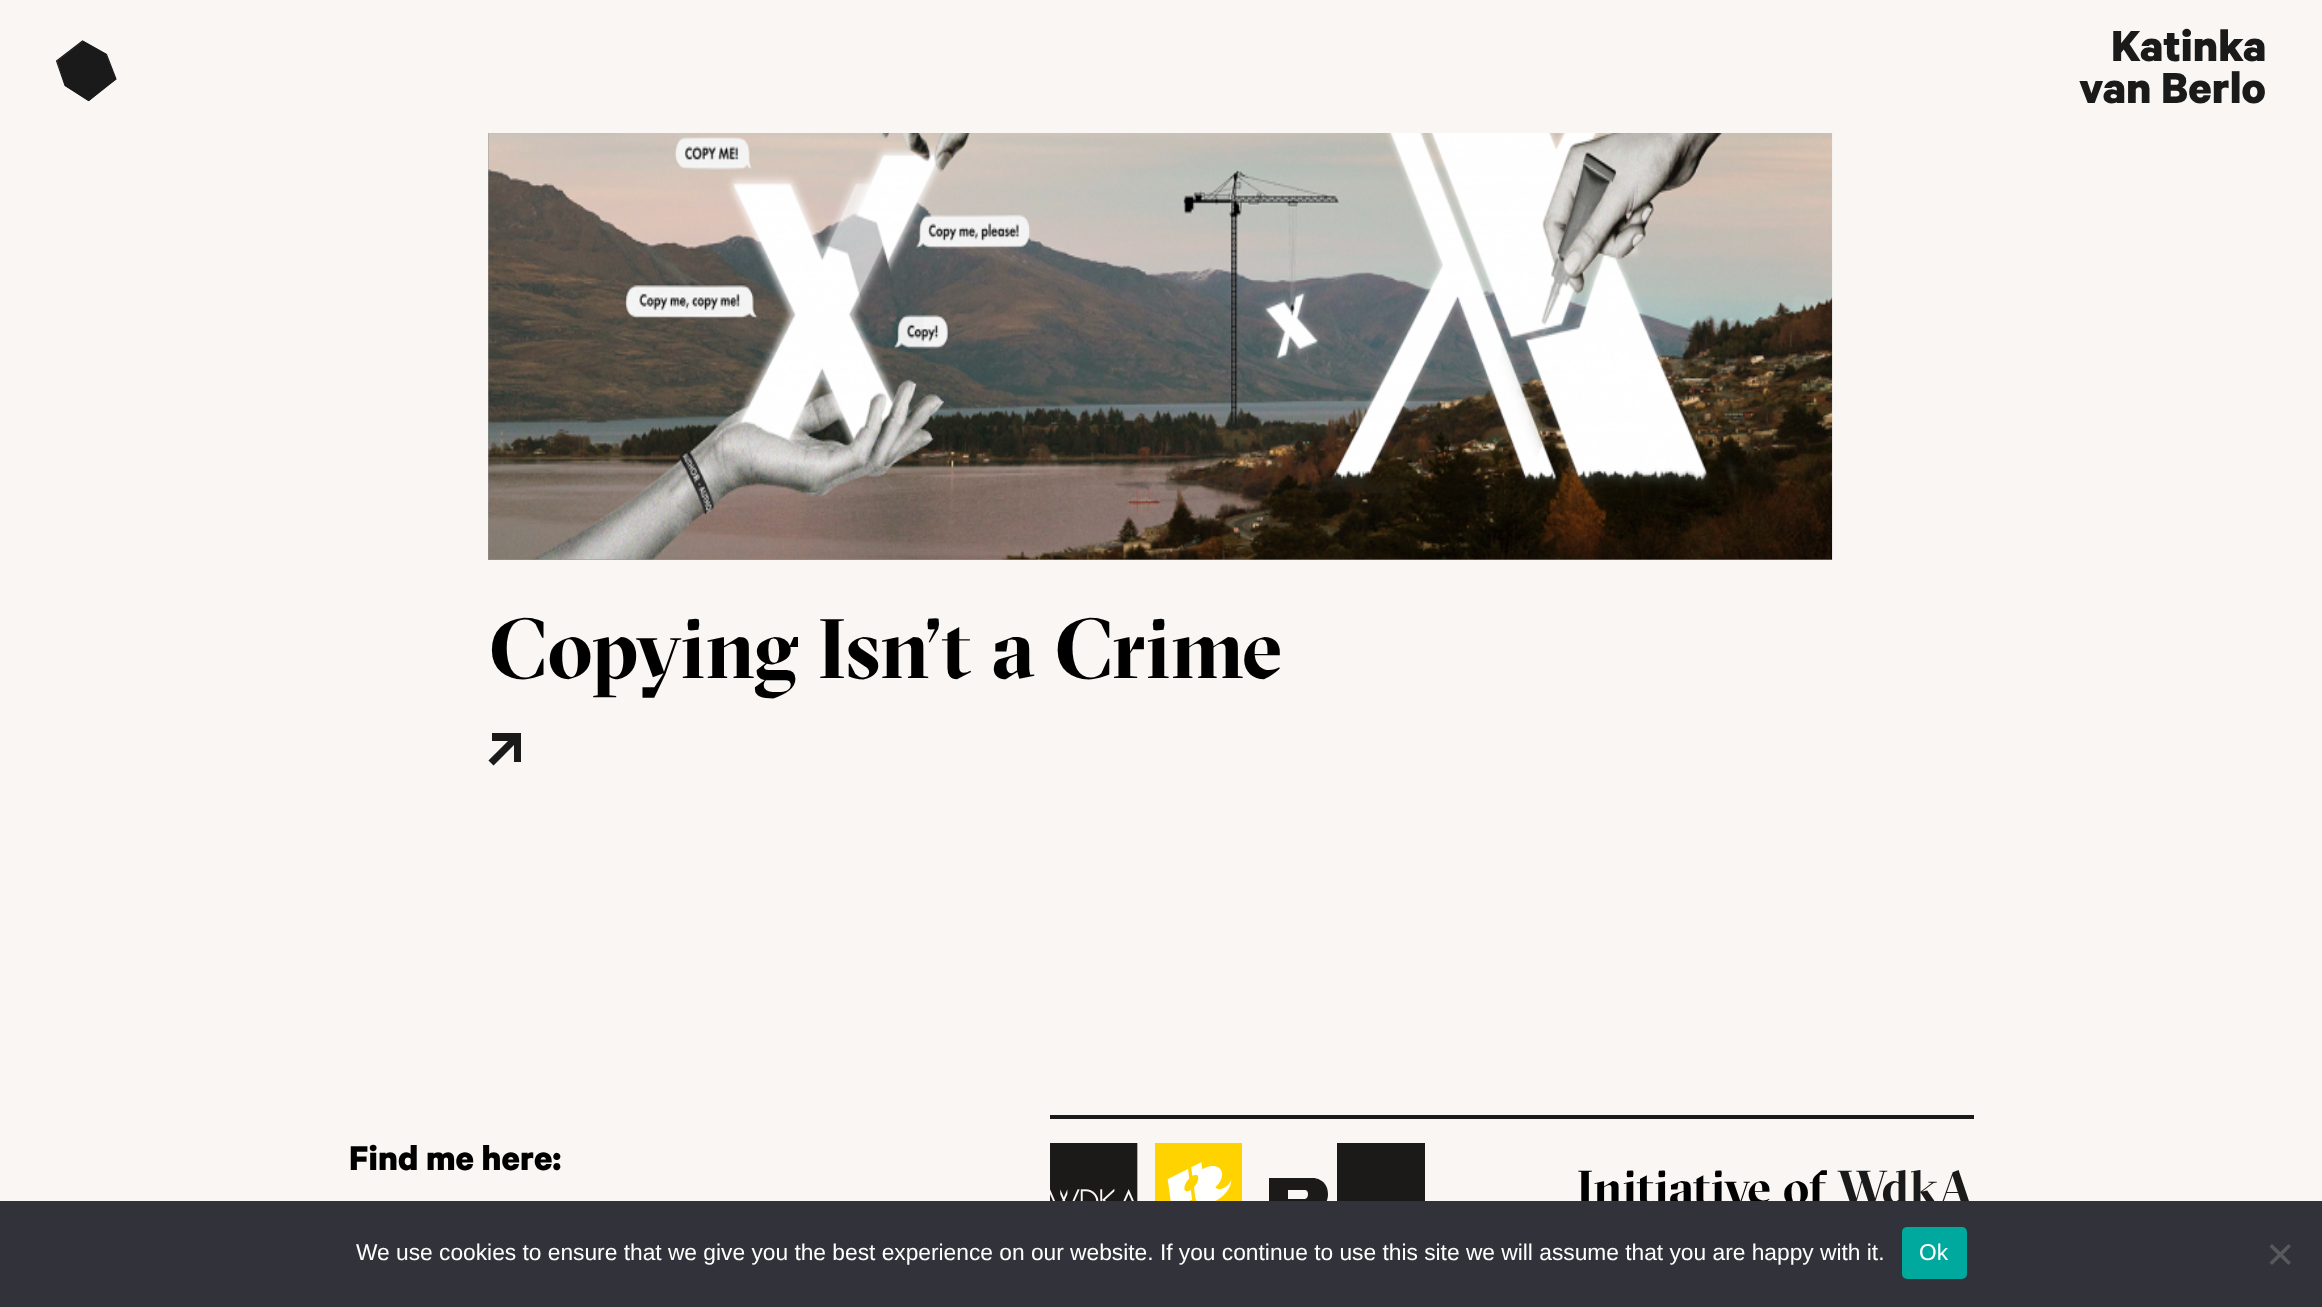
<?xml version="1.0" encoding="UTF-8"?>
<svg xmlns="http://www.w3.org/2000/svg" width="2322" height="1307">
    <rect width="100%" height="100%" fill="#F9F6F3"/>
    <path d="M 83 41 L 57 61 L 65 86 L 89 101 L 116 79 L 106 54 Z" fill="#1A1A1A" fill-rule="evenodd"/>
    <path d="M 82.5 41 L 56.5 61 L 65 85.5 L 88.5 100.5 L 116 79 L 106.5 54.5 Z" fill="none" stroke="#1A1A1A" stroke-width="1.1"/>
    <text x="2111" y="61" font-family="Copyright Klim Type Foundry" font-size="49" font-weight="700" fill="#1A1A1A">Katinka</text>
    <text x="2079" y="103" font-family="Copyright Klim Type Foundry" font-size="49" font-weight="700" fill="#1A1A1A">van Berlo</text>
    <rect x="488" y="133" width="1344" height="427" fill="#979797"/>
    <image x="488" y="133" width="1345" height="427" href="img_01.png"/>
    <text x="489" y="678" font-family="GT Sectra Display" font-size="84" font-weight="700" fill="#000000">Copying Isn’t a Crime</text>
    <rect x="492" y="733" width="29" height="8" fill="#1A1A1A"/>
    <rect x="514" y="733" width="7" height="29" fill="#1A1A1A"/>
    <path d="M 517 737 L 491 763" fill="none" stroke="#1A1A1A" stroke-width="7.2"/>
    <text x="349" y="1170" font-family="Copyright Klim Type Foundry" font-size="38.5" font-weight="700" fill="#000000">Find me here:</text>
    <rect x="1050" y="1115" width="924" height="4" fill="#1A1A1A"/>
    <image x="1050" y="1143" width="192" height="58" href="img_02.png"/>
    <path d="M 1304 1199 H 1288 V 1190 H 1305 C 1305 1190 1308 1190 1308 1194 C 1308 1198 1306 1199 1304 1199 Z M 1314 1178 H 1269 V 1229 H 1288 V 1211 H 1314 C 1314 1211 1328 1209 1328 1194 C 1328 1179 1314 1178 1314 1178 Z" fill="#1B1A19" fill-rule="evenodd"/>
    <rect x="1337" y="1143" width="88" height="58" fill="#1B1A19"/>
    <text x="1577" y="1205" font-family="GT Sectra Display" font-size="49" font-weight="700" fill="#000000">Initiative of</text>
    <text x="1837" y="1205" font-family="GT Sectra Display" font-size="49" font-weight="700" fill="#1A1A1A">WdkA</text>
    <rect x="0" y="1201" width="2322" height="106" fill="#32323A"/>
    <text x="356" y="1260" font-family="Liberation Sans" font-size="22.75" fill="#FFFFFF">We use cookies to ensure that we give you the best experience on our website. If you continue to use this site we will assume that you are happy with it.</text>
    <rect x="1902" y="1227" width="65" height="52" rx="5" fill="#00A99D"/>
    <text x="1919" y="1260" font-family="Liberation Sans" font-size="22.75" fill="#FFFFFF">Ok</text>
    <path d="M 2288.5 1244 L 2291 1246.5 L 2272 1265 L 2269.5 1262.5 Z" fill="#59595D"/>
    <path d="M 2269.5 1246.5 L 2272 1244 L 2291 1262.5 L 2288.5 1265 Z" fill="#59595D"/>
</svg>
